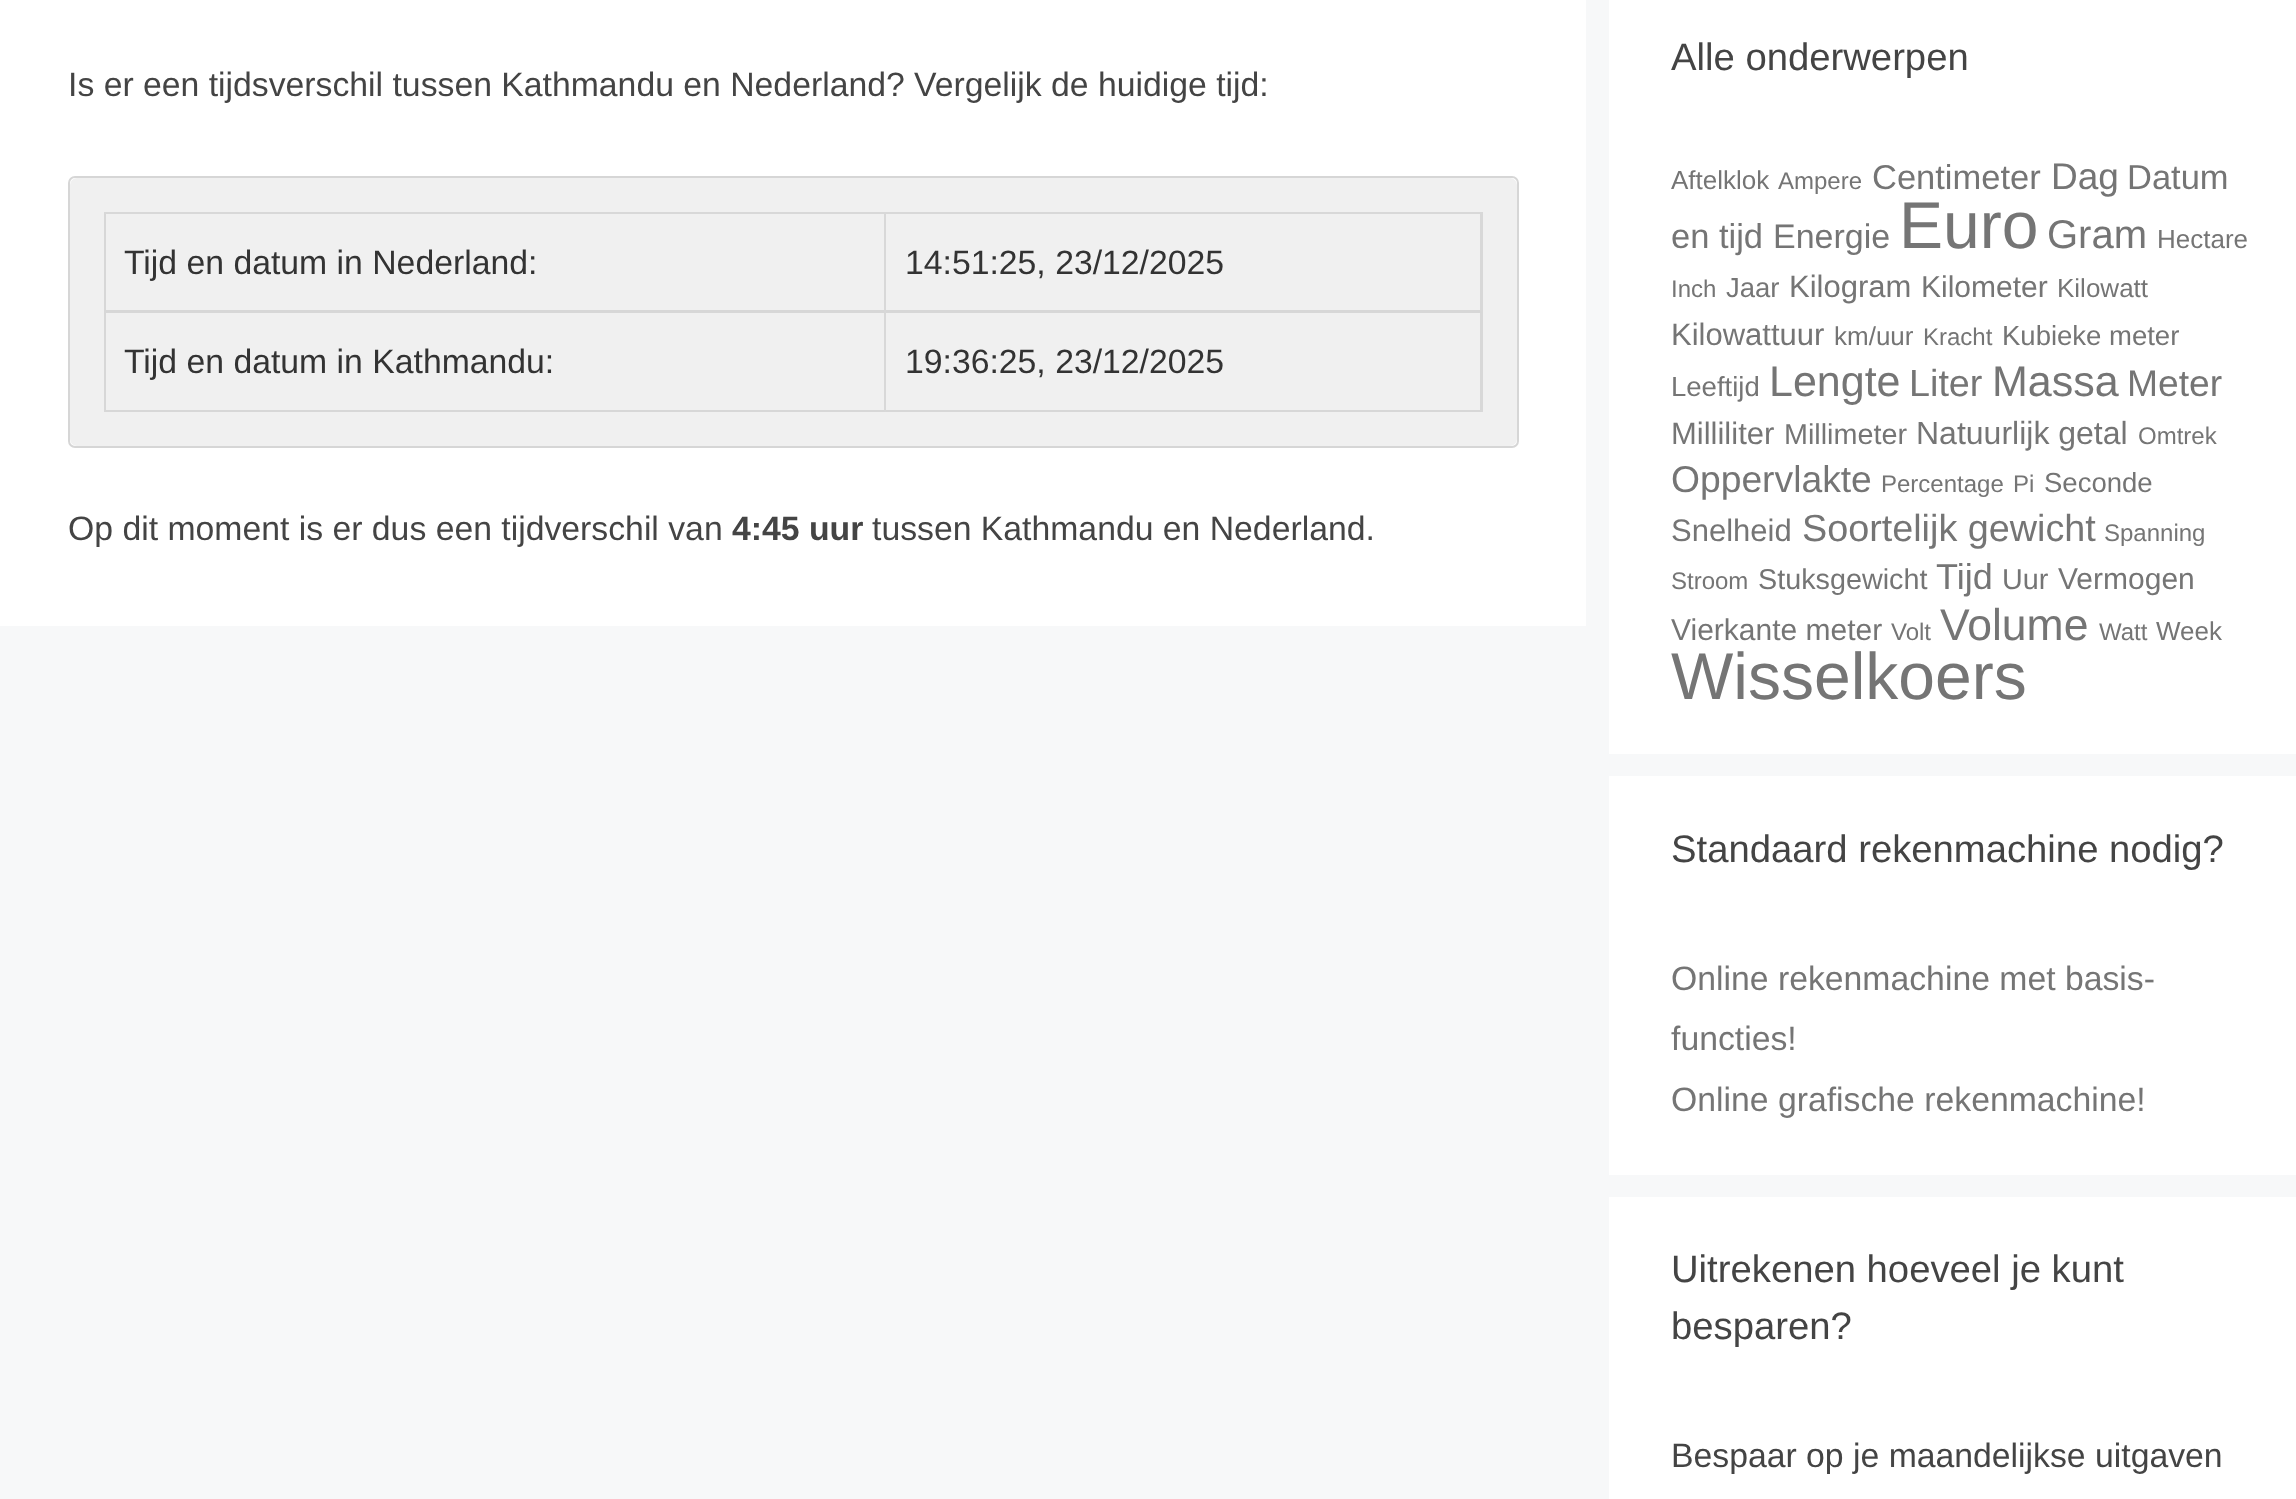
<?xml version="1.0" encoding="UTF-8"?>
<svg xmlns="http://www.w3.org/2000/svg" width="2296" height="1499">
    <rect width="100%" height="100%" fill="#F7F8F9"/>
    <rect x="0" y="0" width="1586" height="626" fill="#FFFFFF"/>
    <text x="68" y="96" font-family="Liberation Sans" font-size="33.75" fill="#444444">Is er een tijdsverschil tussen Kathmandu en Nederland? Vergelijk de huidige tijd:</text>
    <rect x="69" y="177" width="1449" height="270" rx="6" fill="none" stroke="#D6D6D6" stroke-width="2"/>
    <rect x="70" y="178" width="1447" height="268" rx="7" fill="#F0F0F0"/>
    <path d="M 104 212 H 1483 V 214 H 106 Z" fill="#D8D8D8"/>
    <path d="M 104 412 V 212 L 106 214 V 412 Z" fill="#000000" fill-opacity="0.1"/>
    <path d="M 886 214 V 313 L 884 310 V 214 Z" fill="#D8D8D8"/>
    <path d="M 886 313 H 106 V 310 H 884 Z" fill="#000000" fill-opacity="0.1"/>
    <text x="124" y="274" font-family="Liberation Sans" font-size="33.75" fill="#333333">Tijd en datum in Nederland:</text>
    <path d="M 1483 214 V 313 L 1480 310 V 214 Z" fill="#D8D8D8"/>
    <path d="M 1483 313 H 886 V 310 H 1480 Z" fill="#000000" fill-opacity="0.1"/>
    <text x="905" y="274" font-family="Liberation Sans" font-size="33.75" fill="#333333">14:51:25, 23/12/2025</text>
    <path d="M 886 313 V 412 L 884 410 V 313 Z" fill="#D8D8D8"/>
    <path d="M 886 412 H 106 V 410 H 884 Z" fill="#000000" fill-opacity="0.1"/>
    <text x="124" y="373" font-family="Liberation Sans" font-size="33.75" fill="#333333">Tijd en datum in Kathmandu:</text>
    <path d="M 1483 313 V 412 L 1480 410 V 313 Z" fill="#D8D8D8"/>
    <path d="M 1483 412 H 886 V 410 H 1480 Z" fill="#000000" fill-opacity="0.1"/>
    <text x="905" y="373" font-family="Liberation Sans" font-size="33.75" fill="#333333">19:36:25, 23/12/2025</text>
    <text x="68" y="540" font-family="Liberation Sans" font-size="33.75" fill="#444444">Op dit moment is er dus een tijdverschil van</text>
    <text x="732" y="540" font-family="Liberation Sans" font-size="33.75" font-weight="700" fill="#444444">4:45 uur</text>
    <text x="872" y="540" font-family="Liberation Sans" font-size="33.75" fill="#444444">tussen Kathmandu en Nederland.</text>
    <rect x="1609" y="0" width="687" height="754" fill="#FFFFFF"/>
    <text x="1671" y="70" font-family="Liberation Sans" font-size="38.25" fill="#444444">Alle onderwerpen</text>
    <text x="1671" y="189" font-family="Liberation Sans" font-size="26" fill="#757575">Aftelklok</text>
    <text x="1778" y="189" font-family="Liberation Sans" font-size="24" fill="#757575">Ampere</text>
    <text x="1872" y="189" font-family="Liberation Sans" font-size="34.5" fill="#757575">Centimeter</text>
    <text x="2051" y="189" font-family="Liberation Sans" font-size="37" fill="#757575">Dag</text>
    <text x="2127" y="189" font-family="Liberation Sans" font-size="34.5" fill="#757575">Datum</text>
    <text x="1671" y="248" font-family="Liberation Sans" font-size="34.5" fill="#757575">en tijd</text>
    <text x="1773" y="248" font-family="Liberation Sans" font-size="34" fill="#757575">Energie</text>
    <text x="1899" y="248" font-family="Liberation Sans" font-size="66" fill="#757575">Euro</text>
    <text x="2047" y="248" font-family="Liberation Sans" font-size="40" fill="#757575">Gram</text>
    <text x="2157" y="248" font-family="Liberation Sans" font-size="26" fill="#757575">Hectare</text>
    <text x="1671" y="297" font-family="Liberation Sans" font-size="24" fill="#757575">Inch</text>
    <text x="1726" y="297" font-family="Liberation Sans" font-size="27.5" fill="#757575">Jaar</text>
    <text x="1789" y="297" font-family="Liberation Sans" font-size="31" fill="#757575">Kilogram</text>
    <text x="1921" y="297" font-family="Liberation Sans" font-size="30" fill="#757575">Kilometer</text>
    <text x="2057" y="297" font-family="Liberation Sans" font-size="26" fill="#757575">Kilowatt</text>
    <text x="1671" y="345" font-family="Liberation Sans" font-size="31" fill="#757575">Kilowattuur</text>
    <text x="1834" y="345" font-family="Liberation Sans" font-size="26" fill="#757575">km/uur</text>
    <text x="1923" y="345" font-family="Liberation Sans" font-size="24" fill="#757575">Kracht</text>
    <text x="2002" y="345" font-family="Liberation Sans" font-size="27.5" fill="#757575">Kubieke meter</text>
    <text x="1671" y="396" font-family="Liberation Sans" font-size="27.5" fill="#757575">Leeftijd</text>
    <text x="1769" y="396" font-family="Liberation Sans" font-size="43" fill="#757575">Lengte</text>
    <text x="1909" y="396" font-family="Liberation Sans" font-size="37.75" fill="#757575">Liter</text>
    <text x="1992" y="396" font-family="Liberation Sans" font-size="43" fill="#757575">Massa</text>
    <text x="2127" y="396" font-family="Liberation Sans" font-size="37.25" fill="#757575">Meter</text>
    <text x="1671" y="444" font-family="Liberation Sans" font-size="31" fill="#757575">Milliliter</text>
    <text x="1784" y="444" font-family="Liberation Sans" font-size="28.75" fill="#757575">Millimeter</text>
    <text x="1916" y="444" font-family="Liberation Sans" font-size="32" fill="#757575">Natuurlijk getal</text>
    <text x="2138" y="444" font-family="Liberation Sans" font-size="24" fill="#757575">Omtrek</text>
    <text x="1671" y="492" font-family="Liberation Sans" font-size="37.25" fill="#757575">Oppervlakte</text>
    <text x="1881" y="492" font-family="Liberation Sans" font-size="24" fill="#757575">Percentage</text>
    <text x="2013" y="492" font-family="Liberation Sans" font-size="24" fill="#757575">Pi</text>
    <text x="2044" y="492" font-family="Liberation Sans" font-size="27.5" fill="#757575">Seconde</text>
    <text x="1671" y="541" font-family="Liberation Sans" font-size="31" fill="#757575">Snelheid</text>
    <text x="1802" y="541" font-family="Liberation Sans" font-size="37.75" fill="#757575">Soortelijk gewicht</text>
    <text x="2104" y="541" font-family="Liberation Sans" font-size="24" fill="#757575">Spanning</text>
    <text x="1671" y="589" font-family="Liberation Sans" font-size="24" fill="#757575">Stroom</text>
    <text x="1758" y="589" font-family="Liberation Sans" font-size="28.75" fill="#757575">Stuksgewicht</text>
    <text x="1936" y="589" font-family="Liberation Sans" font-size="36" fill="#757575">Tijd</text>
    <text x="2002" y="589" font-family="Liberation Sans" font-size="28.75" fill="#757575">Uur</text>
    <text x="2058" y="589" font-family="Liberation Sans" font-size="30" fill="#757575">Vermogen</text>
    <text x="1671" y="640" font-family="Liberation Sans" font-size="30" fill="#757575">Vierkante meter</text>
    <text x="1891" y="640" font-family="Liberation Sans" font-size="24" fill="#757575">Volt</text>
    <text x="1940" y="640" font-family="Liberation Sans" font-size="44.5" fill="#757575">Volume</text>
    <text x="2099" y="640" font-family="Liberation Sans" font-size="24" fill="#757575">Watt</text>
    <text x="2156" y="640" font-family="Liberation Sans" font-size="26" fill="#757575">Week</text>
    <text x="1671" y="699" font-family="Liberation Sans" font-size="66" fill="#757575">Wisselkoers</text>
    <rect x="1609" y="776" width="687" height="399" fill="#FFFFFF"/>
    <text x="1671" y="862" font-family="Liberation Sans" font-size="38.25" fill="#444444">Standaard rekenmachine nodig?</text>
    <text font-family="Liberation Sans" font-size="33.75" fill="#757575">
        <tspan x="1671" y="990">Online rekenmachine met basis-</tspan>
        <tspan x="1671" y="1050">functies!</tspan>
        <tspan x="1671" y="1111">Online grafische rekenmachine!</tspan>
    </text>
    <rect x="1609" y="1197" width="687" height="302" fill="#FFFFFF"/>
    <text font-family="Liberation Sans" font-size="38.25" fill="#444444">
        <tspan x="1671" y="1282">Uitrekenen hoeveel je kunt</tspan>
        <tspan x="1671" y="1339">besparen?</tspan>
    </text>
    <text x="1671" y="1467" font-family="Liberation Sans" font-size="33.75" fill="#444444">Bespaar op je maandelijkse uitgaven</text>
</svg>
